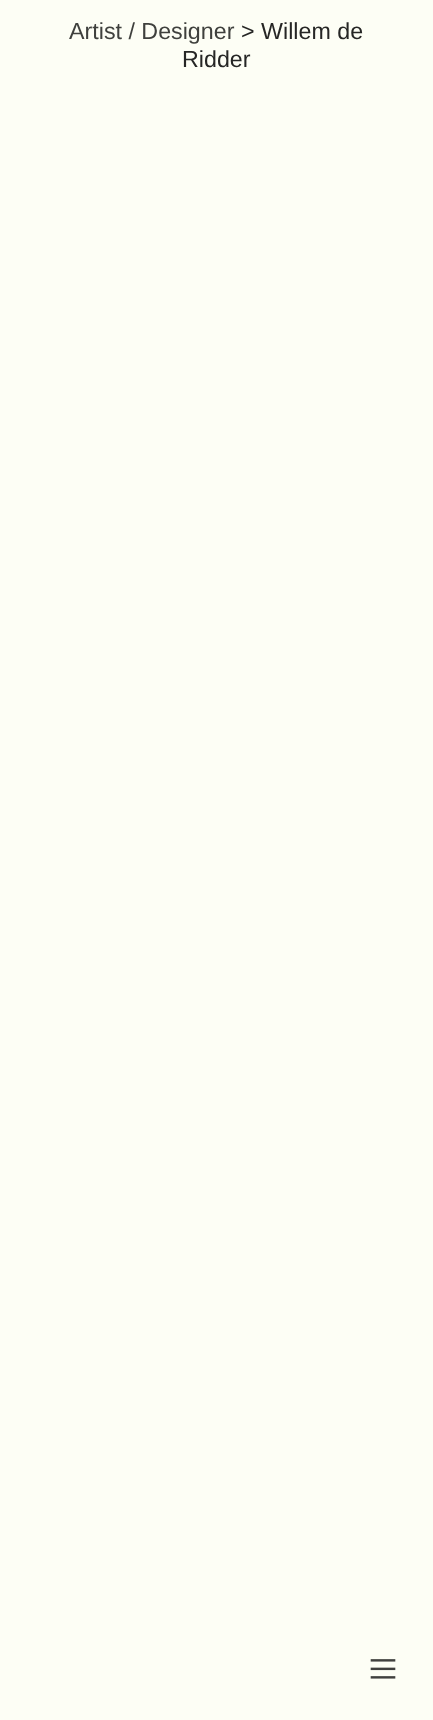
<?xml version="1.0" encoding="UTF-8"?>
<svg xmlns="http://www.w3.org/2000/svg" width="433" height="1720">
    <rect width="100%" height="100%" fill="#FDFEF5"/>
    <text x="69" y="39" font-family="Liberation Sans" font-size="23.25" fill="#3F403D">Artist / Designer</text>
    <text x="241" y="39" font-family="Liberation Sans" font-size="23.25" fill="#262625">&gt; Willem de</text>
    <text x="182" y="67" font-family="Liberation Sans" font-size="23.25" fill="#262625">Ridder</text>
    <image x="370" y="1659" width="26" height="20" href="img_01.png"/>
</svg>
